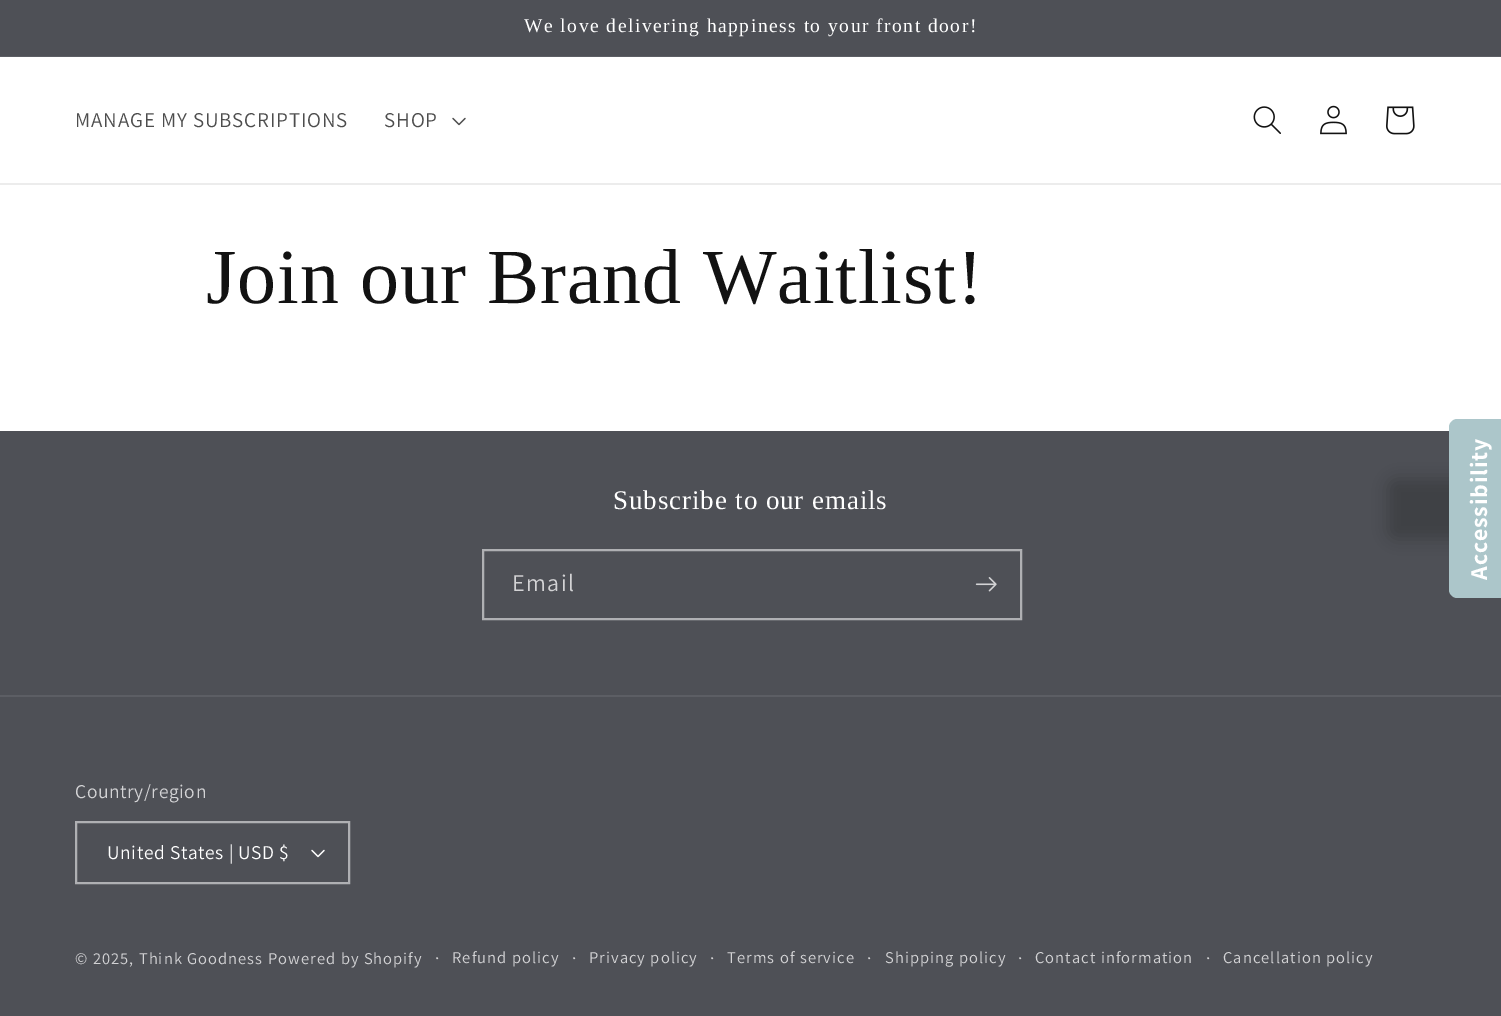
%!PS-Adobe-3.0
%%BoundingBox: 0 0 1501 1016
%%LanguageLevel: 3
%%Pages: 1
%%EndComments
%%BeginProlog
/setink { 3 { 255 div 3 1 roll } repeat setrgbcolor } def
/usefont { [ exch dup neg 0 0 3 -1 roll 0 0 ] selectfont } def
/fillbox { setink rectfill } def
/setalpha { dup .setfillconstantalpha .setstrokeconstantalpha } def
/rrect { 5 dict begin { /r /h /w /y /x } { exch def } forall
  x r add y moveto x w add y 2 copy h add r arct x w add y h add x 1 index r arct
  x y h add x y r arct x y 2 copy exch w add exch r arct closepath end } def
/softshadow { 12 dict begin { /a /b /q /h /w /y /x } { exch def } forall gsave /was 0 def
  9 -2 -9 { dup b mul 4 div /e exch def 1 sub .425 mul 2.718 exch exp 1 add a .99 .min exch div /now exch def
    1 1 now sub 1 was sub div sub setalpha /was now def
    w h .min e 2 mul add 0 gt { x e sub y e sub w e 2 mul add h e 2 mul add
      q e add b .6 mul add w h .min 2 div e add .min 0 .max rrect fill } if } for grestore end } def
/drawimage { 5 dict begin { /h /w /y /x /name } { exch def } forall
  gsave x y translate w h scale
  w h 8 [w 0 0 h 0 0] name (r) file false 3 colorimage grestore end } def
%%EndProlog
%%BeginSetup
<< /PageSize [1501 1016] /PageUsesTransparency true >> setpagedevice
%%EndSetup
%%Page: 1 1
0 .pushpdf14devicefilter
0 1016 translate 1 -1 scale
4 setmiterlimit
0 0 1501 1016 255 255 255 fillbox
0 0 1501 56 78 80 86 fillbox
0 56 1501 1 92 94 100 fillbox
/LiberationSerif-Regular 19.5 usefont
255 255 255 setink
524 32 moveto 1.5 0 (We love delivering happiness to your front door!) ashow
0 183 1501 2 236 236 236 fillbox
/Assistant-Regular 21 usefont
77 77 77 setink
75 127 moveto 0.9 0 (MANAGE MY SUBSCRIPTIONS) ashow
384 127 moveto 0.9 0 (SHOP) ashow
(assets/img1.rgb) 452 117 14 9 drawimage
(assets/img2.rgb) 1253 106 28 28 drawimage
(assets/img3.rgb) 1320 105 27 30 drawimage
(assets/img4.rgb) 1386 106 29 29 drawimage
/LiberationSerif-Regular 78 usefont
18 18 18 setink
206 303 moveto 0.9 0 (Join our Brand Waitlist!) ashow
0 431 1501 585 78 80 86 fillbox
/LiberationSerif-Regular 27 usefont
255 255 255 setink
613 509 moveto 0.9 0 (Subscribe to our emails) ashow
175 176 179 setink
2 setlinewidth
483 550 538 69 rectstroke
/Assistant-Regular 24 usefont
211 211 213 setink
512 591 moveto 1.5 0 (Email) ashow
(assets/img5.rgb) 975 577 22 15 drawimage
0 695 1501 2 92 94 100 fillbox
/Assistant-Regular 19.5 usefont
211 211 213 setink
75 798 moveto 0.6 0 (Country/region) ashow
(assets/img6.rgb) 311 849 14 9 drawimage
175 176 179 setink
76 822 273 61 rectstroke
255 255 255 setink
107 859 moveto 0.6 0 (United States | USD $) ashow
/Assistant-Regular 16.5 usefont
211 211 213 setink
75 964 moveto 1.05 0 (© 2025, Think Goodness) ashow
268 964 moveto 1.05 0 (Powered by Shopify) ashow
/Assistant-Regular 18 usefont
435 964 moveto 1.05 0 (·) ashow
/Assistant-Regular 16.5 usefont
452 963 moveto 1.05 0 (Refund policy) ashow
/Assistant-Regular 18 usefont
572 964 moveto 1.05 0 (·) ashow
/Assistant-Regular 16.5 usefont
589 963 moveto 1.05 0 (Privacy policy) ashow
/Assistant-Regular 18 usefont
710 964 moveto 1.05 0 (·) ashow
/Assistant-Regular 16.5 usefont
727 963 moveto 1.05 0 (Terms of service) ashow
/Assistant-Regular 18 usefont
867 964 moveto 1.05 0 (·) ashow
/Assistant-Regular 16.5 usefont
885 963 moveto 1.05 0 (Shipping policy) ashow
/Assistant-Regular 18 usefont
1018 964 moveto 1.05 0 (·) ashow
/Assistant-Regular 16.5 usefont
1035 963 moveto 1.05 0 (Contact information) ashow
/Assistant-Regular 18 usefont
1206 964 moveto 1.05 0 (·) ashow
/Assistant-Regular 16.5 usefont
1223 963 moveto 1.05 0 (Cancellation policy) ashow
0 0 0 setink
1388 479 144 60 8 7.5 0.2 softshadow
172 198 202 setink
1449 590 moveto 1449 427 lineto 1449 423 1453 419 1457 419 curveto 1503 419 lineto 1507 419 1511 423 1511 427 curveto 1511 590 lineto 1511 594 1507 598 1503 598 curveto 1457 598 lineto 1453 598 1449 594 1449 590 curveto closepath fill
/Assistant-Bold 24 usefont
255 255 255 setink
gsave 1487 580 translate -90 rotate 0 0 moveto 0.9 0 (Accessibility) ashow grestore
.poppdf14devicefilter showpage
%%EOF
